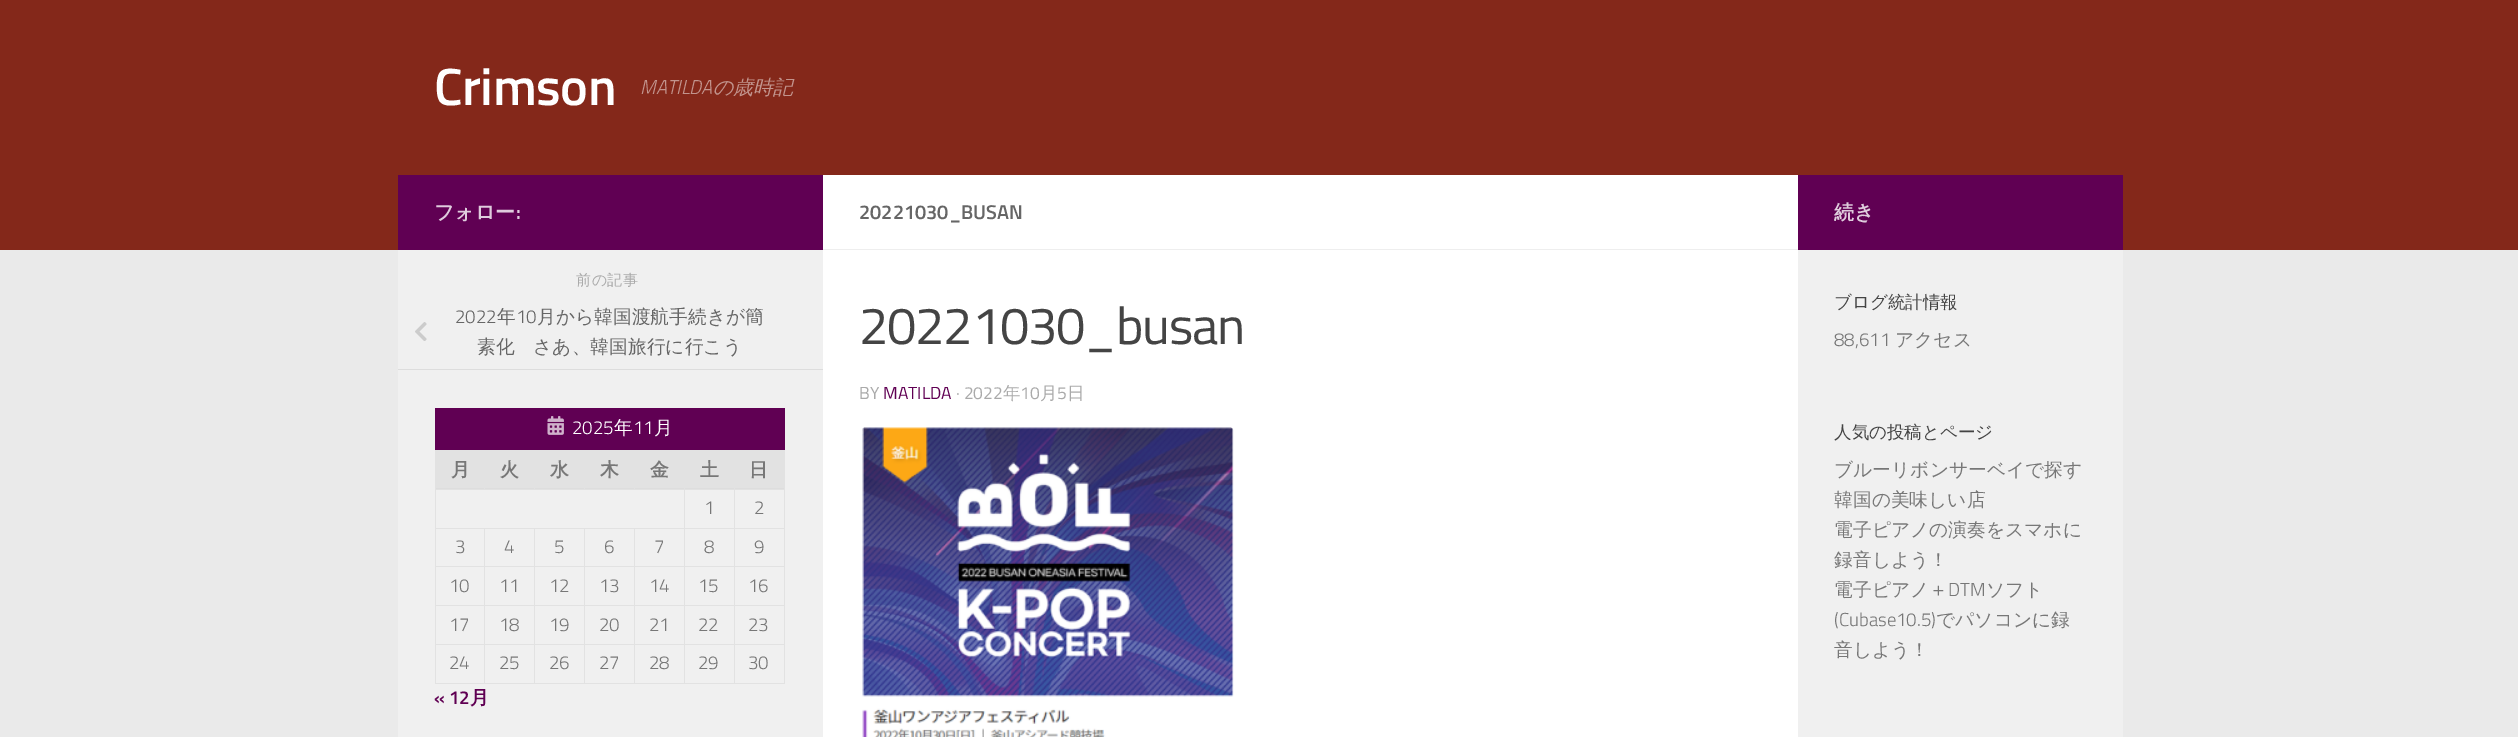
%!PS-Adobe-3.0
%%BoundingBox: 0 0 2518 737
%%LanguageLevel: 3
%%Pages: 1
%%EndComments
%%BeginProlog
/setink { 3 { 255 div 3 1 roll } repeat setrgbcolor } def
/usefont { [ exch dup neg 0 0 3 -1 roll 0 0 ] selectfont } def
/drawtext { setink usefont moveto show } def
/fillbox { setink rectfill } def
/drawimage { 5 dict begin { /h /w /y /x /name } { exch def } forall
  gsave x y translate w h scale
  w h 8 [w 0 0 h 0 0] name (r) file false 3 colorimage grestore end } def
%%EndProlog
%%BeginSetup
<< /PageSize [2518 737] >> setpagedevice
%%EndSetup
%%Page: 1 1
0 737 translate 1 -1 scale
4 setmiterlimit
0 0 2518 737 234 234 234 fillbox
0 0 2518 250 132 40 26 fillbox
/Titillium-SemiBold 52.5 usefont
255 255 255 setink
434 105 moveto -0.5 0 (Crimson) ashow
(MATILDA) 640 94 /Titillium-LightItalic 20 194 148 141 drawtext
(の歳時記) 713 94 /WenQuanYiZenHei-MediumItalic 20 194 148 141 drawtext
823 175 975 562 255 255 255 fillbox
398 175 425 75 96 0 83 fillbox
(フォロー) 434 219 /WenQuanYiZenHei-Bold 20 223 204 221 drawtext
(:) 516 219 /Titillium-SemiBold 20 223 204 221 drawtext
398 250 425 487 240 240 240 fillbox
/WenQuanYiZenHei-Medium 15 usefont
170 170 170 setink
576 285 moveto 0.5 0 (前の記事) ashow
398 369 425 1 221 221 221 fillbox
(2022) 455 323 /Titillium-Light 18.75 102 102 102 drawtext
(年) 497 323 /WenQuanYiZenHei-Medium 18.75 102 102 102 drawtext
(10) 516 323 /Titillium-Light 18.75 102 102 102 drawtext
(月から韓国渡航手続きが簡) 537 323 /WenQuanYiZenHei-Medium 18.75 102 102 102 drawtext
(assets/img1.rgb) 415 322 12 19 drawimage
(素化　さあ、韓国旅行に行こう) 477 353 /WenQuanYiZenHei-Medium 18.75 102 102 102 drawtext
435 408 350 42 96 0 83 fillbox
(assets/img2.rgb) 547 416 17 19 drawimage
(2025) 572 434 /Titillium-Light 18.75 255 255 255 drawtext
(年) 614 434 /WenQuanYiZenHei-Medium 18.75 255 255 255 drawtext
(11) 633 434 /Titillium-Light 18.75 255 255 255 drawtext
(月) 654 434 /WenQuanYiZenHei-Medium 18.75 255 255 255 drawtext
436 450 348 38 226 226 226 fillbox
435 488 349 1 221 221 221 fillbox
(月) 451 476 /WenQuanYiZenHei-Bold 18.75 119 119 119 drawtext
734 489 51 1 226 226 226 fillbox
734 528 51 1 226 226 226 fillbox
734 566 51 1 226 226 226 fillbox
734 605 51 1 226 226 226 fillbox
734 644 51 1 226 226 226 fillbox
784 644 1 40 226 226 226 fillbox
734 683 51 1 226 226 226 fillbox
734 644 1 40 226 226 226 fillbox
684 644 51 1 226 226 226 fillbox
734 605 1 40 226 226 226 fillbox
684 605 51 1 226 226 226 fillbox
734 566 1 40 226 226 226 fillbox
684 566 51 1 226 226 226 fillbox
734 528 1 40 226 226 226 fillbox
684 528 51 1 226 226 226 fillbox
734 489 1 40 226 226 226 fillbox
684 489 51 1 226 226 226 fillbox
684 683 51 1 226 226 226 fillbox
684 644 1 40 226 226 226 fillbox
634 644 51 1 226 226 226 fillbox
684 605 1 40 226 226 226 fillbox
634 605 51 1 226 226 226 fillbox
684 566 1 40 226 226 226 fillbox
634 566 51 1 226 226 226 fillbox
684 528 1 40 226 226 226 fillbox
634 528 51 1 226 226 226 fillbox
684 489 1 40 226 226 226 fillbox
435 489 250 1 226 226 226 fillbox
484 488 1 2 226 226 226 fillbox
(火) 500 476 /WenQuanYiZenHei-Bold 18.75 119 119 119 drawtext
534 488 1 2 226 226 226 fillbox
(水) 550 476 /WenQuanYiZenHei-Bold 18.75 119 119 119 drawtext
584 488 1 2 226 226 226 fillbox
(木) 600 476 /WenQuanYiZenHei-Bold 18.75 119 119 119 drawtext
634 488 1 2 226 226 226 fillbox
(金) 650 476 /WenQuanYiZenHei-Bold 18.75 119 119 119 drawtext
684 488 1 2 226 226 226 fillbox
(土) 700 476 /WenQuanYiZenHei-Bold 18.75 119 119 119 drawtext
784 605 1 40 226 226 226 fillbox
784 566 1 40 226 226 226 fillbox
784 528 1 40 226 226 226 fillbox
784 489 1 40 226 226 226 fillbox
784 450 1 40 226 226 226 fillbox
734 488 1 2 226 226 226 fillbox
(日) 749 476 /WenQuanYiZenHei-Bold 18.75 119 119 119 drawtext
634 683 51 1 226 226 226 fillbox
634 644 1 40 226 226 226 fillbox
584 644 51 1 226 226 226 fillbox
634 605 1 40 226 226 226 fillbox
584 605 51 1 226 226 226 fillbox
634 566 1 40 226 226 226 fillbox
584 566 51 1 226 226 226 fillbox
634 528 1 40 226 226 226 fillbox
584 528 51 1 226 226 226 fillbox
584 683 51 1 226 226 226 fillbox
584 644 1 40 226 226 226 fillbox
534 644 51 1 226 226 226 fillbox
584 605 1 40 226 226 226 fillbox
534 605 51 1 226 226 226 fillbox
584 566 1 40 226 226 226 fillbox
534 566 51 1 226 226 226 fillbox
584 528 1 40 226 226 226 fillbox
534 528 51 1 226 226 226 fillbox
534 683 51 1 226 226 226 fillbox
534 644 1 40 226 226 226 fillbox
484 644 51 1 226 226 226 fillbox
534 605 1 40 226 226 226 fillbox
484 605 51 1 226 226 226 fillbox
534 566 1 40 226 226 226 fillbox
484 566 51 1 226 226 226 fillbox
534 528 1 40 226 226 226 fillbox
484 528 51 1 226 226 226 fillbox
484 683 51 1 226 226 226 fillbox
484 644 1 40 226 226 226 fillbox
435 644 50 1 226 226 226 fillbox
484 605 1 40 226 226 226 fillbox
435 605 50 1 226 226 226 fillbox
484 566 1 40 226 226 226 fillbox
435 566 50 1 226 226 226 fillbox
484 528 1 40 226 226 226 fillbox
435 528 50 1 226 226 226 fillbox
435 683 50 1 226 226 226 fillbox
435 644 1 40 226 226 226 fillbox
435 605 1 40 226 226 226 fillbox
435 566 1 40 226 226 226 fillbox
435 528 1 40 226 226 226 fillbox
435 450 1 79 226 226 226 fillbox
(1) 704 514 /Titillium-Light 18.75 119 119 119 drawtext
(2) 754 514 /Titillium-Light 18.75 119 119 119 drawtext
(3) 455 553 /Titillium-Light 18.75 119 119 119 drawtext
(4) 504 553 /Titillium-Light 18.75 119 119 119 drawtext
(5) 554 553 /Titillium-Light 18.75 119 119 119 drawtext
(6) 604 553 /Titillium-Light 18.75 119 119 119 drawtext
(7) 654 553 /Titillium-Light 18.75 119 119 119 drawtext
(8) 704 553 /Titillium-Light 18.75 119 119 119 drawtext
(9) 754 553 /Titillium-Light 18.75 119 119 119 drawtext
(10) 449 592 /Titillium-Light 18.75 119 119 119 drawtext
(11) 499 592 /Titillium-Light 18.75 119 119 119 drawtext
(12) 549 592 /Titillium-Light 18.75 119 119 119 drawtext
(13) 599 592 /Titillium-Light 18.75 119 119 119 drawtext
(14) 649 592 /Titillium-Light 18.75 119 119 119 drawtext
(15) 698 592 /Titillium-Light 18.75 119 119 119 drawtext
(16) 748 592 /Titillium-Light 18.75 119 119 119 drawtext
(17) 449 631 /Titillium-Light 18.75 119 119 119 drawtext
(18) 499 631 /Titillium-Light 18.75 119 119 119 drawtext
(19) 549 631 /Titillium-Light 18.75 119 119 119 drawtext
(20) 599 631 /Titillium-Light 18.75 119 119 119 drawtext
(21) 649 631 /Titillium-Light 18.75 119 119 119 drawtext
(22) 698 631 /Titillium-Light 18.75 119 119 119 drawtext
(23) 748 631 /Titillium-Light 18.75 119 119 119 drawtext
(24) 449 669 /Titillium-Light 18.75 119 119 119 drawtext
(25) 499 669 /Titillium-Light 18.75 119 119 119 drawtext
(26) 549 669 /Titillium-Light 18.75 119 119 119 drawtext
(27) 599 669 /Titillium-Light 18.75 119 119 119 drawtext
(28) 649 669 /Titillium-Light 18.75 119 119 119 drawtext
(29) 698 669 /Titillium-Light 18.75 119 119 119 drawtext
(30) 748 669 /Titillium-Light 18.75 119 119 119 drawtext
(« 12) 434 704 /Titillium-SemiBold 18.75 96 0 83 drawtext
(月) 470 704 /WenQuanYiZenHei-Bold 18.75 96 0 83 drawtext
823 249 975 1 238 238 238 fillbox
(20221030_BUSAN) 859 219 /Titillium-SemiBold 20 102 102 102 drawtext
/Titillium-Regular 52.5 usefont
68 68 68 setink
859 344 moveto -1.25 0 (20221030_busan) ashow
(BY) 859 399 /Titillium-Regular 17.5 170 170 170 drawtext
(MATILDA) 883 399 /Titillium-Regular 17.5 96 0 83 drawtext
(· 2022) 956 399 /Titillium-Regular 17.5 170 170 170 drawtext
(年) 1003 399 /WenQuanYiZenHei-Medium 17.5 170 170 170 drawtext
(10) 1020 399 /Titillium-Regular 17.5 170 170 170 drawtext
(月) 1040 399 /WenQuanYiZenHei-Medium 17.5 170 170 170 drawtext
(5) 1057 399 /Titillium-Regular 17.5 170 170 170 drawtext
(日) 1067 399 /WenQuanYiZenHei-Medium 17.5 170 170 170 drawtext
(assets/img3.rgb) 862 427 372 310 drawimage
1798 175 325 75 96 0 83 fillbox
(続き) 1834 219 /WenQuanYiZenHei-Bold 20 223 204 221 drawtext
1798 250 325 487 240 240 240 fillbox
(ブログ統計情報) 1834 308 /WenQuanYiZenHei-Medium 17.5 68 68 68 drawtext
(88,611) 1834 346 /Titillium-Light 18.75 119 119 119 drawtext
(アクセス) 1895 346 /WenQuanYiZenHei-Medium 18.75 119 119 119 drawtext
(人気の投稿とページ) 1834 438 /WenQuanYiZenHei-Medium 17.5 68 68 68 drawtext
(ブルーリボンサーベイで探す) 1834 476 /WenQuanYiZenHei-Medium 18.75 119 119 119 drawtext
(韓国の美味しい店) 1834 506 /WenQuanYiZenHei-Medium 18.75 119 119 119 drawtext
(電子ピアノの演奏をスマホに) 1834 536 /WenQuanYiZenHei-Medium 18.75 119 119 119 drawtext
(録音しよう！) 1834 566 /WenQuanYiZenHei-Medium 18.75 119 119 119 drawtext
(電子ピアノ＋) 1834 596 /WenQuanYiZenHei-Medium 18.75 119 119 119 drawtext
(DTM) 1948 596 /Titillium-Light 18.75 119 119 119 drawtext
(ソフト) 1986 596 /WenQuanYiZenHei-Medium 18.75 119 119 119 drawtext
(\(Cubase10.5\)) 1834 626 /Titillium-Light 18.75 119 119 119 drawtext
(でパソコンに録) 1936 626 /WenQuanYiZenHei-Medium 18.75 119 119 119 drawtext
(音しよう！) 1834 656 /WenQuanYiZenHei-Medium 18.75 119 119 119 drawtext
showpage
%%EOF
